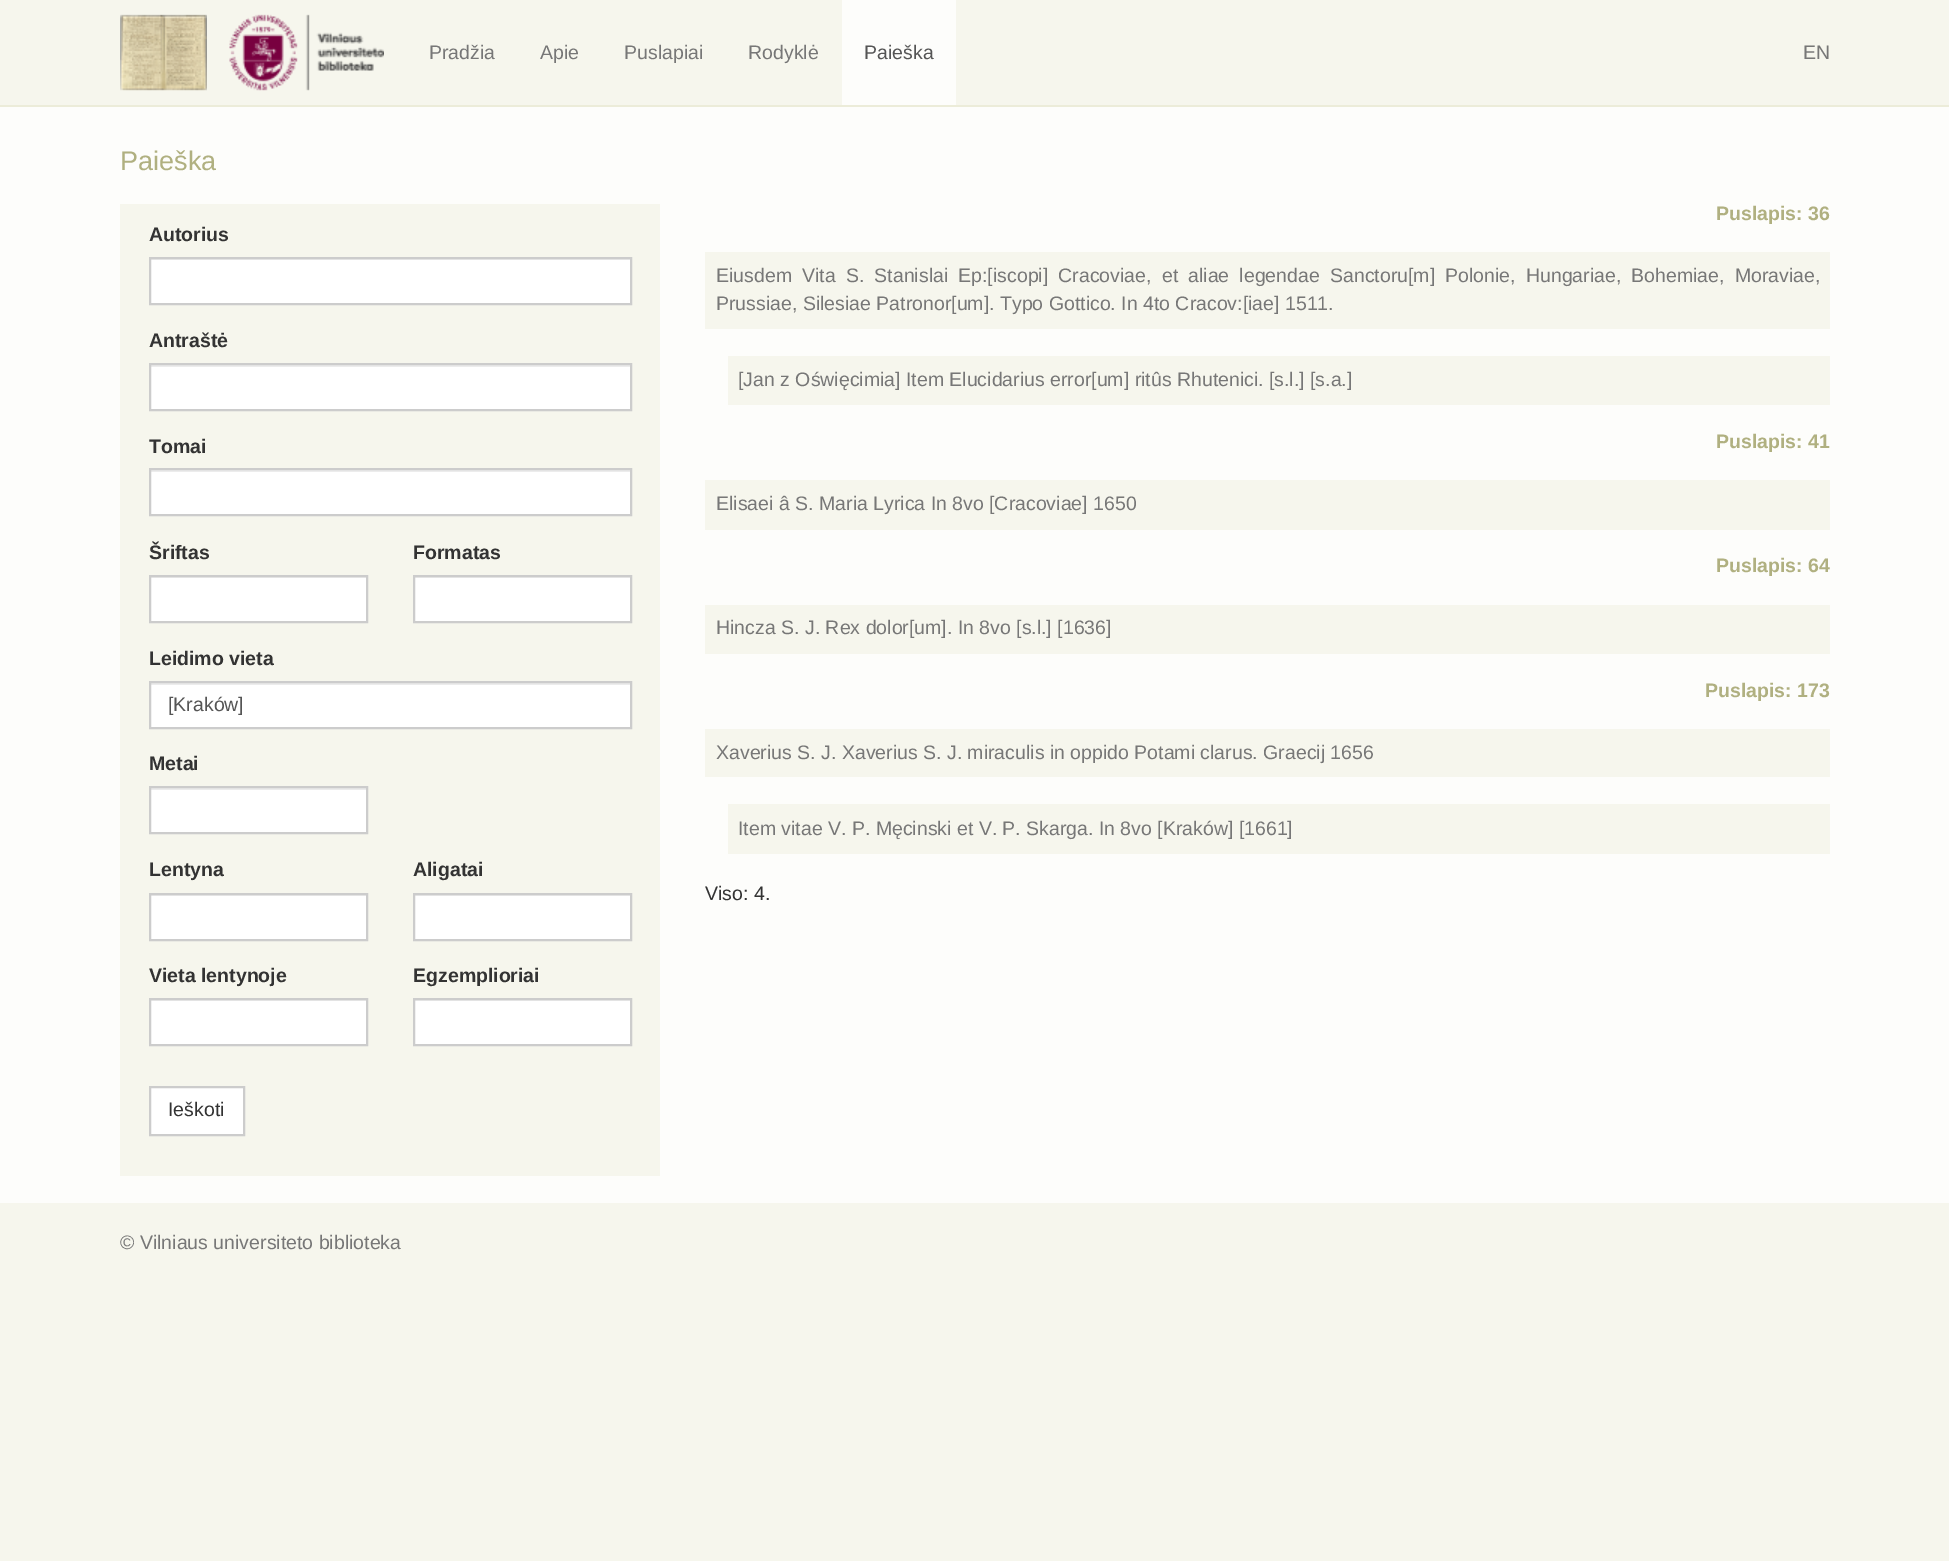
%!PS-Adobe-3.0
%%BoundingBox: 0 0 1949 1561
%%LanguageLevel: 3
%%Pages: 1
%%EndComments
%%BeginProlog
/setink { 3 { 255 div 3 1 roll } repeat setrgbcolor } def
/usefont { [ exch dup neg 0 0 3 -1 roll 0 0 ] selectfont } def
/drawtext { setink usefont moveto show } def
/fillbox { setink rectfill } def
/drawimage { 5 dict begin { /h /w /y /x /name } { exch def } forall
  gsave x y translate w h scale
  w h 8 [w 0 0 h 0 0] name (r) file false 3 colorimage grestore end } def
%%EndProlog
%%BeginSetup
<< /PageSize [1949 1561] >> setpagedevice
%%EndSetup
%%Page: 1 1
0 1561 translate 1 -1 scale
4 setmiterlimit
0 0 1949 1561 246 246 237 fillbox
0 105 1949 2 236 236 217 fillbox
(assets/img1.rgb) 120 14 87 77 drawimage
(assets/img2.rgb) 229 14 155 77 drawimage
(Pradžia) 429 59 /LiberationSans-Regular 19.5 119 119 119 drawtext
(Apie) 540 59 /LiberationSans-Regular 19.5 119 119 119 drawtext
(Puslapiai) 624 59 /LiberationSans-Regular 19.5 119 119 119 drawtext
(Rodyklė) 748 59 /LiberationSans-Regular 19.5 119 119 119 drawtext
842 0 114 105 253 253 251 fillbox
(Paieška) 864 59 /LiberationSans-Regular 19.5 85 85 85 drawtext
(EN) 1803 59 /LiberationSans-Regular 19.5 119 119 119 drawtext
0 107 1949 1096 253 253 251 fillbox
(Paieška) 120 170 /LiberationSans-Regular 27 176 176 128 drawtext
120 204 540 972 246 246 237 fillbox
(Autorius) 149 241 /LiberationSans-Bold 19.5 51 51 51 drawtext
151 260 479 43 255 255 255 fillbox
150 259 480 1 236 236 236 fillbox
204 204 204 setink
2 setlinewidth
150 258 481 46 rectstroke
(Antraštė) 149 347 /LiberationSans-Bold 19.5 51 51 51 drawtext
151 367 479 42 255 255 255 fillbox
150 365 480 2 236 236 236 fillbox
204 204 204 setink
150 364 481 46 rectstroke
(Tomai) 149 453 /LiberationSans-Bold 19.5 51 51 51 drawtext
151 472 479 42 255 255 255 fillbox
150 470 480 2 236 236 236 fillbox
204 204 204 setink
150 469 481 46 rectstroke
(Šriftas) 149 559 /LiberationSans-Bold 19.5 51 51 51 drawtext
151 578 215 43 255 255 255 fillbox
150 577 216 1 236 236 236 fillbox
204 204 204 setink
150 576 217 46 rectstroke
(Formatas) 413 559 /LiberationSans-Bold 19.5 51 51 51 drawtext
415 578 215 43 255 255 255 fillbox
414 577 216 1 236 236 236 fillbox
204 204 204 setink
414 576 217 46 rectstroke
(Leidimo vieta) 149 665 /LiberationSans-Bold 19.5 51 51 51 drawtext
151 685 479 42 255 255 255 fillbox
150 683 480 2 236 236 236 fillbox
204 204 204 setink
150 682 481 46 rectstroke
([Kraków]) 168 711 /LiberationSans-Regular 19.5 85 85 85 drawtext
(Metai) 149 770 /LiberationSans-Bold 19.5 51 51 51 drawtext
151 790 215 42 255 255 255 fillbox
150 788 216 2 236 236 236 fillbox
204 204 204 setink
150 787 217 46 rectstroke
(Lentyna) 149 876 /LiberationSans-Bold 19.5 51 51 51 drawtext
151 896 215 43 255 255 255 fillbox
150 895 216 1 236 236 236 fillbox
204 204 204 setink
150 894 217 46 rectstroke
(Aligatai) 413 876 /LiberationSans-Bold 19.5 51 51 51 drawtext
415 896 215 43 255 255 255 fillbox
414 895 216 1 236 236 236 fillbox
204 204 204 setink
414 894 217 46 rectstroke
(Vieta lentynoje) 149 982 /LiberationSans-Bold 19.5 51 51 51 drawtext
151 1001 215 43 255 255 255 fillbox
150 1000 216 1 236 236 236 fillbox
204 204 204 setink
150 999 217 46 rectstroke
(Egzemplioriai) 413 982 /LiberationSans-Bold 19.5 51 51 51 drawtext
415 1001 215 43 255 255 255 fillbox
414 1000 216 1 236 236 236 fillbox
204 204 204 setink
414 999 217 46 rectstroke
255 255 255 setink
150 1087 moveto 244 1087 lineto 244 1135 lineto 150 1135 lineto closepath gsave fill grestore
204 204 204 setink
stroke
(Ieškoti) 168 1116 /LiberationSans-Regular 19.5 51 51 51 drawtext
(Puslapis: 36) 1716 220 /LiberationSans-Bold 19.5 176 176 128 drawtext
705 252 1125 77 246 246 237 fillbox
/LiberationSans-Regular 19.5 usefont
119 119 119 setink
716 282 moveto 4.75 0 32 (Eiusdem Vita S. Stanislai Ep:[iscopi] Cracoviae, et aliae legendae Sanctoru[m] Polonie, Hungariae, Bohemiae, Moraviae,) widthshow
(Prussiae, Silesiae Patronor[um]. Typo Gottico. In 4to Cracov:[iae] 1511.) 716 310 /LiberationSans-Regular 19.5 119 119 119 drawtext
728 356 1102 49 246 246 237 fillbox
([Jan z Oświęcimia] Item Elucidarius error[um] ritûs Rhutenici. [s.l.] [s.a.]) 738 386 /LiberationSans-Regular 19.5 119 119 119 drawtext
(Puslapis: 41) 1716 448 /LiberationSans-Bold 19.5 176 176 128 drawtext
705 480 1125 50 246 246 237 fillbox
(Elisaei â S. Maria Lyrica In 8vo [Cracoviae] 1650) 716 510 /LiberationSans-Regular 19.5 119 119 119 drawtext
(Puslapis: 64) 1716 572 /LiberationSans-Bold 19.5 176 176 128 drawtext
705 605 1125 49 246 246 237 fillbox
(Hincza S. J. Rex dolor[um]. In 8vo [s.l.] [1636]) 716 634 /LiberationSans-Regular 19.5 119 119 119 drawtext
(Puslapis: 173) 1705 697 /LiberationSans-Bold 19.5 176 176 128 drawtext
705 729 1125 48 246 246 237 fillbox
(Xaverius S. J. Xaverius S. J. miraculis in oppido Potami clarus. Graecij 1656) 716 759 /LiberationSans-Regular 19.5 119 119 119 drawtext
728 804 1102 50 246 246 237 fillbox
(Item vitae V. P. Męcinski et V. P. Skarga. In 8vo [Kraków] [1661]) 738 835 /LiberationSans-Regular 19.5 119 119 119 drawtext
(Viso: 4.) 705 900 /LiberationSans-Regular 19.5 51 51 51 drawtext
(© Vilniaus universiteto biblioteka) 120 1249 /LiberationSans-Regular 19.5 119 119 119 drawtext
showpage
%%EOF
